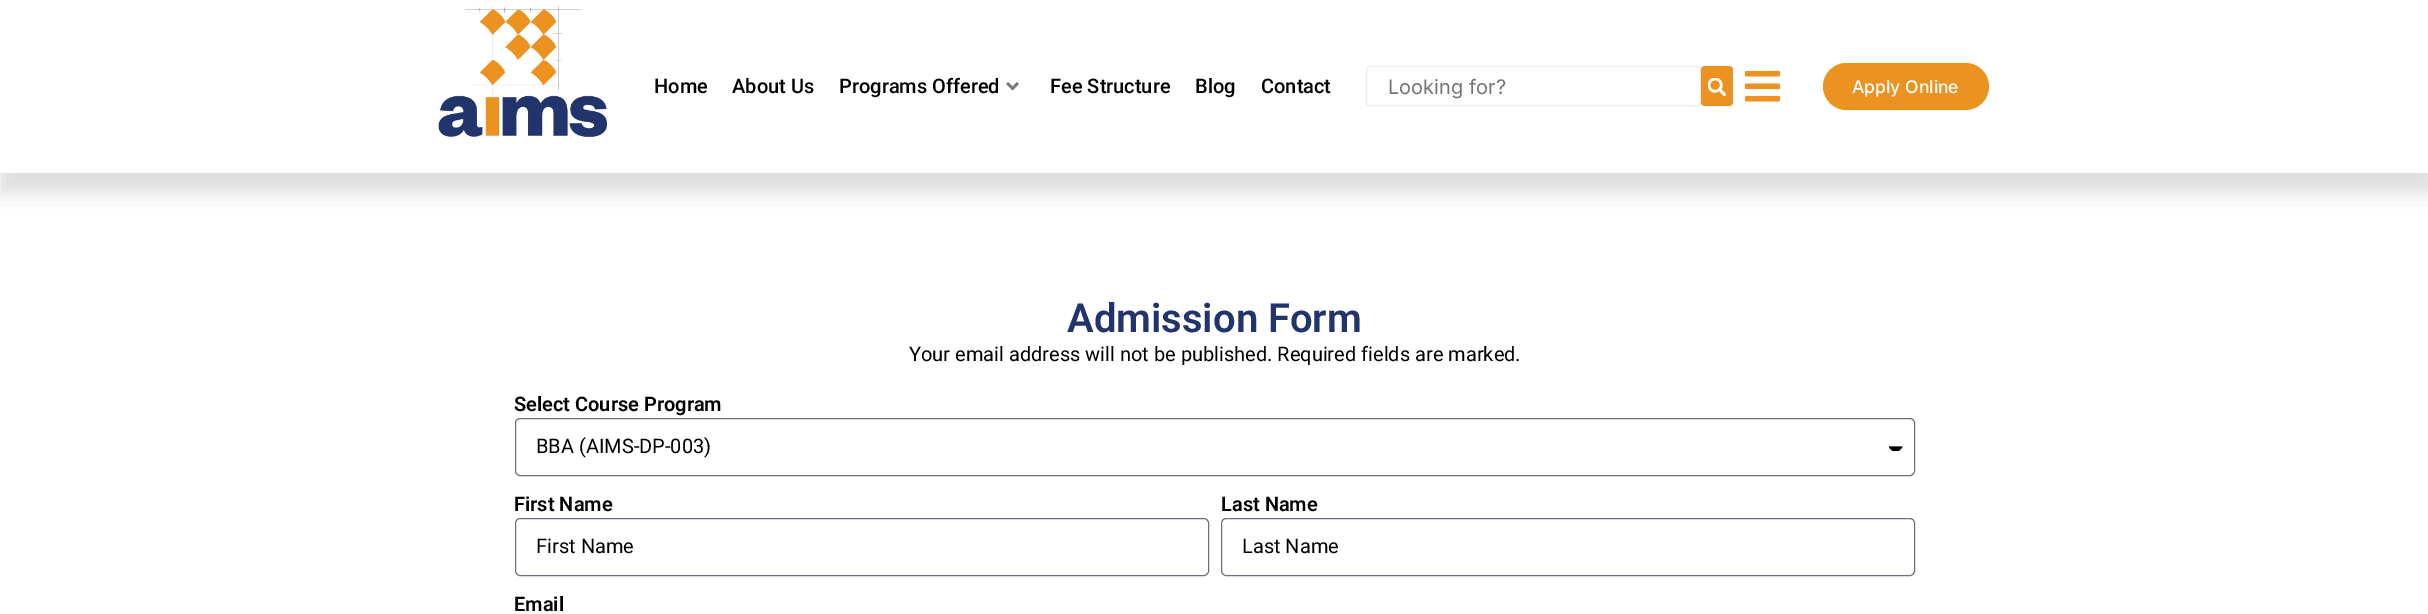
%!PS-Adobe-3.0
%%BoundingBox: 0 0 2428 614
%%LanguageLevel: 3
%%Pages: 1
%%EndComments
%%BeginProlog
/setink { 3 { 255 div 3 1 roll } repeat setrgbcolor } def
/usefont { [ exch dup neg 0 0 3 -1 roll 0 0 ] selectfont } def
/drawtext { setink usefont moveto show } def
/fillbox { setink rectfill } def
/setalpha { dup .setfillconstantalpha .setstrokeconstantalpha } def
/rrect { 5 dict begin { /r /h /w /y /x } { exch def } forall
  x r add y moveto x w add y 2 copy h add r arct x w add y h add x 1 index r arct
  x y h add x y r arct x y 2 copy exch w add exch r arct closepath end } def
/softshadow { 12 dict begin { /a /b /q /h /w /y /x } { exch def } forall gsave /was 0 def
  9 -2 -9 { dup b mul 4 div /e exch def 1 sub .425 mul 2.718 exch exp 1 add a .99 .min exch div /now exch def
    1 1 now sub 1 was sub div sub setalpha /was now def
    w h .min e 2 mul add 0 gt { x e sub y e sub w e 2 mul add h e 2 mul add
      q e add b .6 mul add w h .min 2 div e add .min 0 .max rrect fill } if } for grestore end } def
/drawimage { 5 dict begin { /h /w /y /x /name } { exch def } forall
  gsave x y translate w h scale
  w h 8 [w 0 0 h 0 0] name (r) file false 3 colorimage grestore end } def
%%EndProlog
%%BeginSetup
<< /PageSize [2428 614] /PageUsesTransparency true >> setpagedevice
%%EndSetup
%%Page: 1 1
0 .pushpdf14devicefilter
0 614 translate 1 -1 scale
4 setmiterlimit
0 0 2428 614 255 255 255 fillbox
0 0 0 setink
-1 14 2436 180 0 9.5 0.12 softshadow
0 1 2428 172 255 255 255 fillbox
(assets/img1.rgb) 438 6 169 131 drawimage
(Home) 654 93 /Roboto-Medium 20 0 0 0 drawtext
(About Us) 732 93 /Roboto-Medium 20 0 0 0 drawtext
(Programs Offered) 839 93 /Roboto-Medium 20 0 0 0 drawtext
(assets/img2.rgb) 1006 82 13 9 drawimage
(Fee Structure) 1050 93 /Roboto-Medium 20 0 0 0 drawtext
(Blog) 1195 93 /Roboto-Medium 20 0 0 0 drawtext
(Contact) 1261 93 /Roboto-Medium 20 0 0 0 drawtext
238 238 238 setink
1366.5 66.5 334 39 rectstroke
(Looking for?) 1388 94 /Inter-Regular 20 117 117 117 drawtext
236 146 32 setink
1701 66 32 40 4 rrect fill
(assets/img3.rgb) 1708 78 18 18 drawimage
(assets/img4.rgb) 1745 70 35 32 drawimage
1823 63 166 47 23.5 rrect fill
(Apply Online) 1852 93 /Inter-Medium 17.5 255 255 255 drawtext
(Admission Form) 1067 332 /Roboto-SemiBold 40 33 52 108 drawtext
(Your email address will not be published. Required fields are marked.) 909 361 /Roboto-Regular 20 0 0 0 drawtext
(Select Course Program) 514 411 /Roboto-SemiBold 20 0 0 0 drawtext
105 114 125 setink
515.5 418.5 1399 57 4.5 rrect stroke
(BBA \(AIMS-DP-003\)) 536 453 /Roboto-Regular 20 0 0 0 drawtext
(assets/img5.rgb) 1889 446 14 5 drawimage
(First Name) 514 511 /Roboto-SemiBold 20 0 0 0 drawtext
105 114 125 setink
515.5 518.5 693 57 4.5 rrect stroke
(First Name) 536 553 /Roboto-Regular 20 0 0 0 drawtext
(Last Name) 1221 511 /Roboto-SemiBold 20 0 0 0 drawtext
105 114 125 setink
1221.5 518.5 693 57 4.5 rrect stroke
(Last Name) 1242 553 /Roboto-Regular 20 0 0 0 drawtext
(Email) 514 611 /Roboto-SemiBold 20 0 0 0 drawtext
.poppdf14devicefilter showpage
%%EOF
